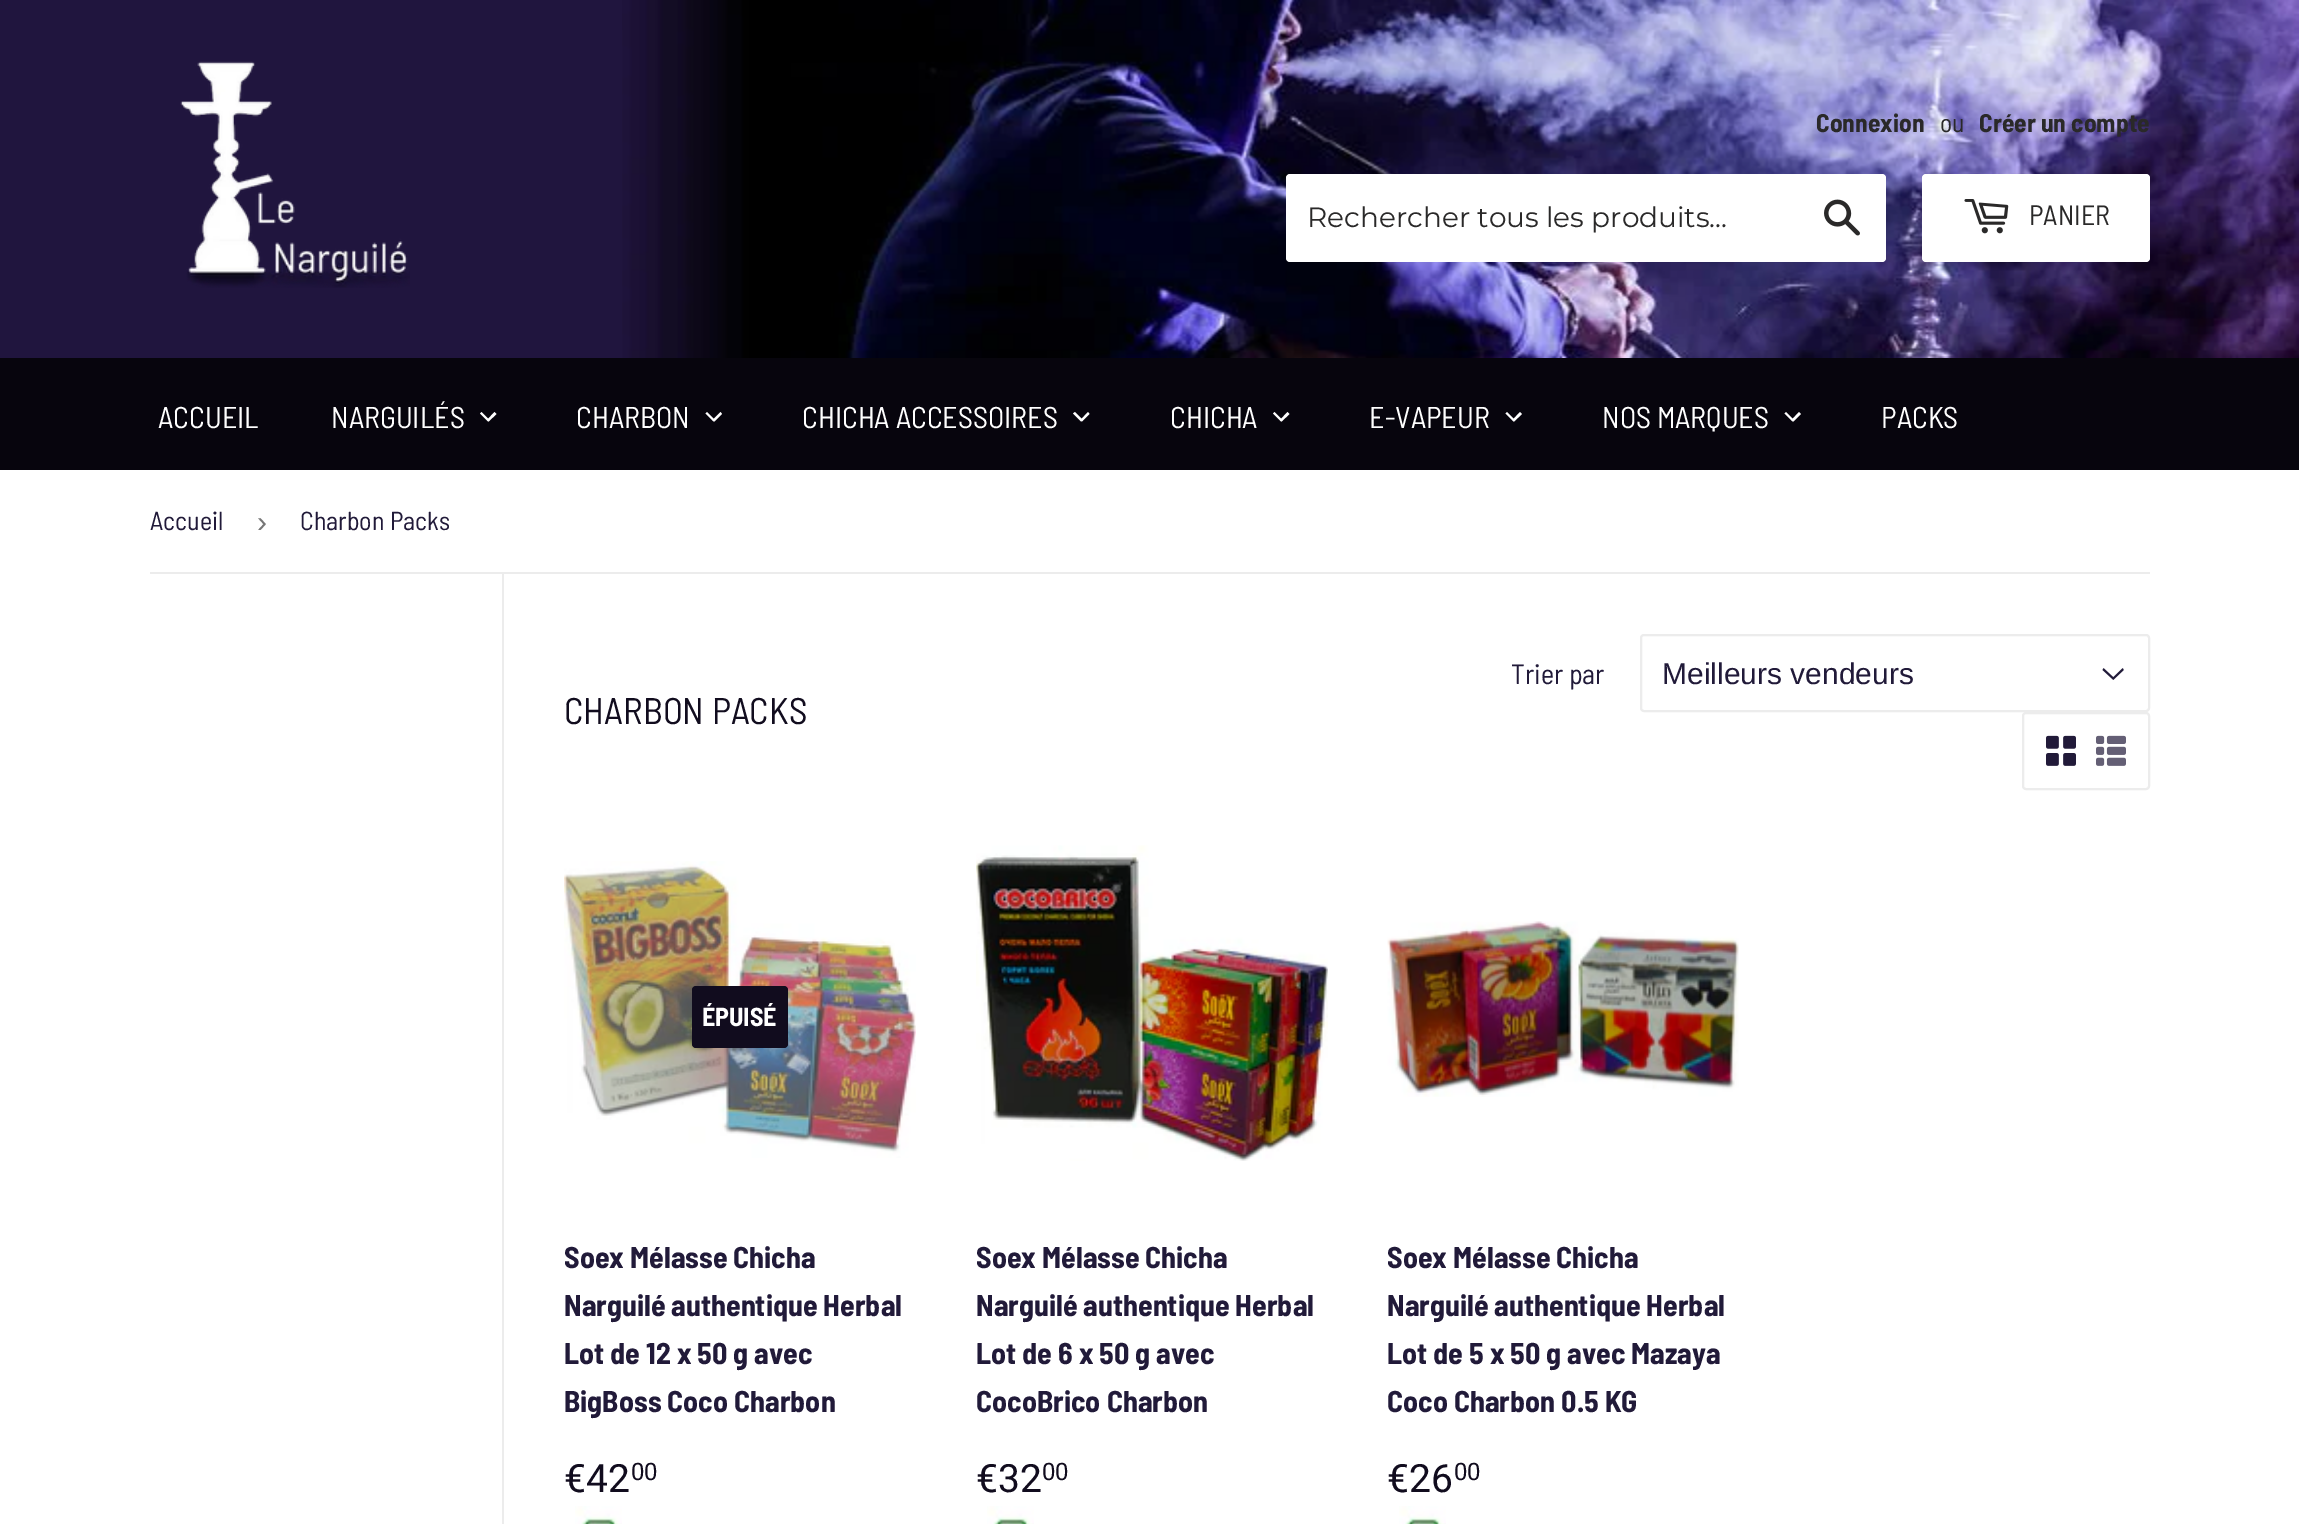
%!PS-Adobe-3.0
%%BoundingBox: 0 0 2299 1524
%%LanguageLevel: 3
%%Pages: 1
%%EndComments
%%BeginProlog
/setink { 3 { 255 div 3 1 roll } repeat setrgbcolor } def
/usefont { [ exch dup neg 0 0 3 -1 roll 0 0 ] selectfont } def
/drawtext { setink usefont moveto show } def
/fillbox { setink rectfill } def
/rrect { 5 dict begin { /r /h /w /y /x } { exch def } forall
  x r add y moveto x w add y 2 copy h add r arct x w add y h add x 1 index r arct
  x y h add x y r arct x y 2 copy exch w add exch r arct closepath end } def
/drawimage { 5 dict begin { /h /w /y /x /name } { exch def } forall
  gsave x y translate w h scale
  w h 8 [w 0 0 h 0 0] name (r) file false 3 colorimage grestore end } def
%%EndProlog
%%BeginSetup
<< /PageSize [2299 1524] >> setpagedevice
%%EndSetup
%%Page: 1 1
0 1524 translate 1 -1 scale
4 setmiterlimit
0 0 2299 1524 255 255 255 fillbox
0 0 622 358 32 21 62 fillbox
(assets/img1.rgb) 622 0 1677 358 drawimage
(assets/img2.rgb) 180 61 230 227 drawimage
(Connexion) 1816 132 /BarlowSemiCondensed-Bold 25.5 42 41 41 drawtext
(ou) 1940 132 /BarlowSemiCondensed-Regular 25.5 42 41 41 drawtext
(Créer un compte) 1979 132 /BarlowSemiCondensed-Bold 25.5 42 41 41 drawtext
255 255 255 setink
1286 174 600 88 4 rrect fill
(Rechercher tous les produits...) 1307 227 /Montserrat-Thin 28 42 41 41 drawtext
(assets/img3.rgb) 1824 199 36 37 drawimage
255 255 255 setink
1922 174 228 88 4 rrect fill
(assets/img4.rgb) 1964 199 45 35 drawimage
(PANIER) 2029 225 /BarlowSemiCondensed-Regular 28 42 41 41 drawtext
0 358 2299 112 7 5 13 fillbox
(ACCUEIL) 158 428 /BarlowSemiCondensed-Regular 30 255 255 255 drawtext
(NARGUILÉS) 331 428 /BarlowSemiCondensed-Regular 30 255 255 255 drawtext
494.5 412 moveto 496.5 414 lineto 488.5 421.5 lineto 487 420 lineto closepath fill
481.5 412 moveto 489.5 420 lineto 488 421.5 lineto 480 413.5 lineto closepath fill
(CHARBON) 576 428 /BarlowSemiCondensed-Regular 30 255 255 255 drawtext
720.5 412 moveto 722 414 lineto 714.5 421.5 lineto 712.5 420 lineto closepath fill
707 412 moveto 715 420 lineto 713.5 421.5 lineto 705.5 413.5 lineto closepath fill
(CHICHA ACCESSOIRES) 802 428 /BarlowSemiCondensed-Regular 30 255 255 255 drawtext
1088 412 moveto 1089.5 414 lineto 1082 421.5 lineto 1080.5 420 lineto closepath fill
1075 412 moveto 1083 420 lineto 1081 421.5 lineto 1073 413.5 lineto closepath fill
(CHICHA) 1170 428 /BarlowSemiCondensed-Regular 30 255 255 255 drawtext
1287.5 412 moveto 1289.5 414 lineto 1281.5 421.5 lineto 1280 420 lineto closepath fill
1274.5 412 moveto 1282.5 420 lineto 1281 421.5 lineto 1273 413.5 lineto closepath fill
(E-VAPEUR) 1369 428 /BarlowSemiCondensed-Regular 30 255 255 255 drawtext
1520 412 moveto 1522 414 lineto 1514 421.5 lineto 1512.5 420 lineto closepath fill
1507 412 moveto 1515 420 lineto 1513.5 421.5 lineto 1505.5 413.5 lineto closepath fill
(NOS MARQUES) 1602 428 /BarlowSemiCondensed-Regular 30 255 255 255 drawtext
1799 412 moveto 1801 414 lineto 1793.5 421.5 lineto 1791.5 420 lineto closepath fill
1786 412 moveto 1794 420 lineto 1792.5 421.5 lineto 1784.5 413.5 lineto closepath fill
(PACKS) 1881 428 /BarlowSemiCondensed-Regular 30 255 255 255 drawtext
150 572 2000 2 236 236 236 fillbox
(Accueil) 150 530 /BarlowSemiCondensed-Regular 26 33 26 57 drawtext
(›) 257 532 /LiberationSans-Regular 30 118 118 118 drawtext
(Charbon Packs) 300 530 /BarlowSemiCondensed-Regular 26 33 26 57 drawtext
502 574 2 950 236 236 236 fillbox
(Trier par) 1511 684 /BarlowSemiCondensed-Regular 28 33 26 57 drawtext
(assets/img5.rgb) 2102 668 22 12 drawimage
236 236 236 setink
2 setlinewidth
1641 635 508 76 3 rrect stroke
(Meilleurs vendeurs) 1662 684 /LiberationSans-Regular 30 33 26 57 drawtext
236 236 236 setink
2023 713 126 76 3 rrect stroke
(assets/img6.rgb) 2046 735 30 31 drawimage
(assets/img7.rgb) 2096 735 30 31 drawimage
(CHARBON PACKS) 564 724 /BarlowSemiCondensed-Regular 37 17 12 30 drawtext
(assets/img8.rgb) 564 861 352 297 drawimage
692 986 96 62 4 rrect fill
(ÉPUISÉ) 702 1026 /BarlowSemiCondensed-Bold 26 255 255 255 drawtext
(Soex Mélasse Chicha) 564 1268 /BarlowSemiCondensed-Bold 30 33 26 57 drawtext
(Narguilé authentique Herbal) 564 1316 /BarlowSemiCondensed-Bold 30 33 26 57 drawtext
(Lot de 12 x 50 g avec) 564 1364 /BarlowSemiCondensed-Bold 30 33 26 57 drawtext
(BigBoss Coco Charbon) 564 1412 /BarlowSemiCondensed-Bold 30 33 26 57 drawtext
(€42) 564 1492 /Roboto-Regular 39 17 12 30 drawtext
(00) 631 1480 /Roboto-Regular 24 17 12 30 drawtext
(assets/img9.rgb) 575 1506 47 18 drawimage
(assets/img10.rgb) 976 845 352 316 drawimage
(Soex Mélasse Chicha) 976 1268 /BarlowSemiCondensed-Bold 30 33 26 57 drawtext
(Narguilé authentique Herbal) 976 1316 /BarlowSemiCondensed-Bold 30 33 26 57 drawtext
(Lot de 6 x 50 g avec) 976 1364 /BarlowSemiCondensed-Bold 30 33 26 57 drawtext
(CocoBrico Charbon) 976 1412 /BarlowSemiCondensed-Bold 30 33 26 57 drawtext
(€32) 976 1492 /Roboto-Regular 39 17 12 30 drawtext
(00) 1042 1480 /Roboto-Regular 24 17 12 30 drawtext
(assets/img9.rgb) 987 1506 47 18 drawimage
(assets/img11.rgb) 1387 921 352 176 drawimage
(Soex Mélasse Chicha) 1387 1268 /BarlowSemiCondensed-Bold 30 33 26 57 drawtext
(Narguilé authentique Herbal) 1387 1316 /BarlowSemiCondensed-Bold 30 33 26 57 drawtext
(Lot de 5 x 50 g avec Mazaya) 1387 1364 /BarlowSemiCondensed-Bold 30 33 26 57 drawtext
(Coco Charbon 0.5 KG) 1387 1412 /BarlowSemiCondensed-Bold 30 33 26 57 drawtext
(€26) 1387 1492 /Roboto-Regular 39 17 12 30 drawtext
(00) 1454 1480 /Roboto-Regular 24 17 12 30 drawtext
(assets/img9.rgb) 1399 1506 47 18 drawimage
showpage
%%EOF
